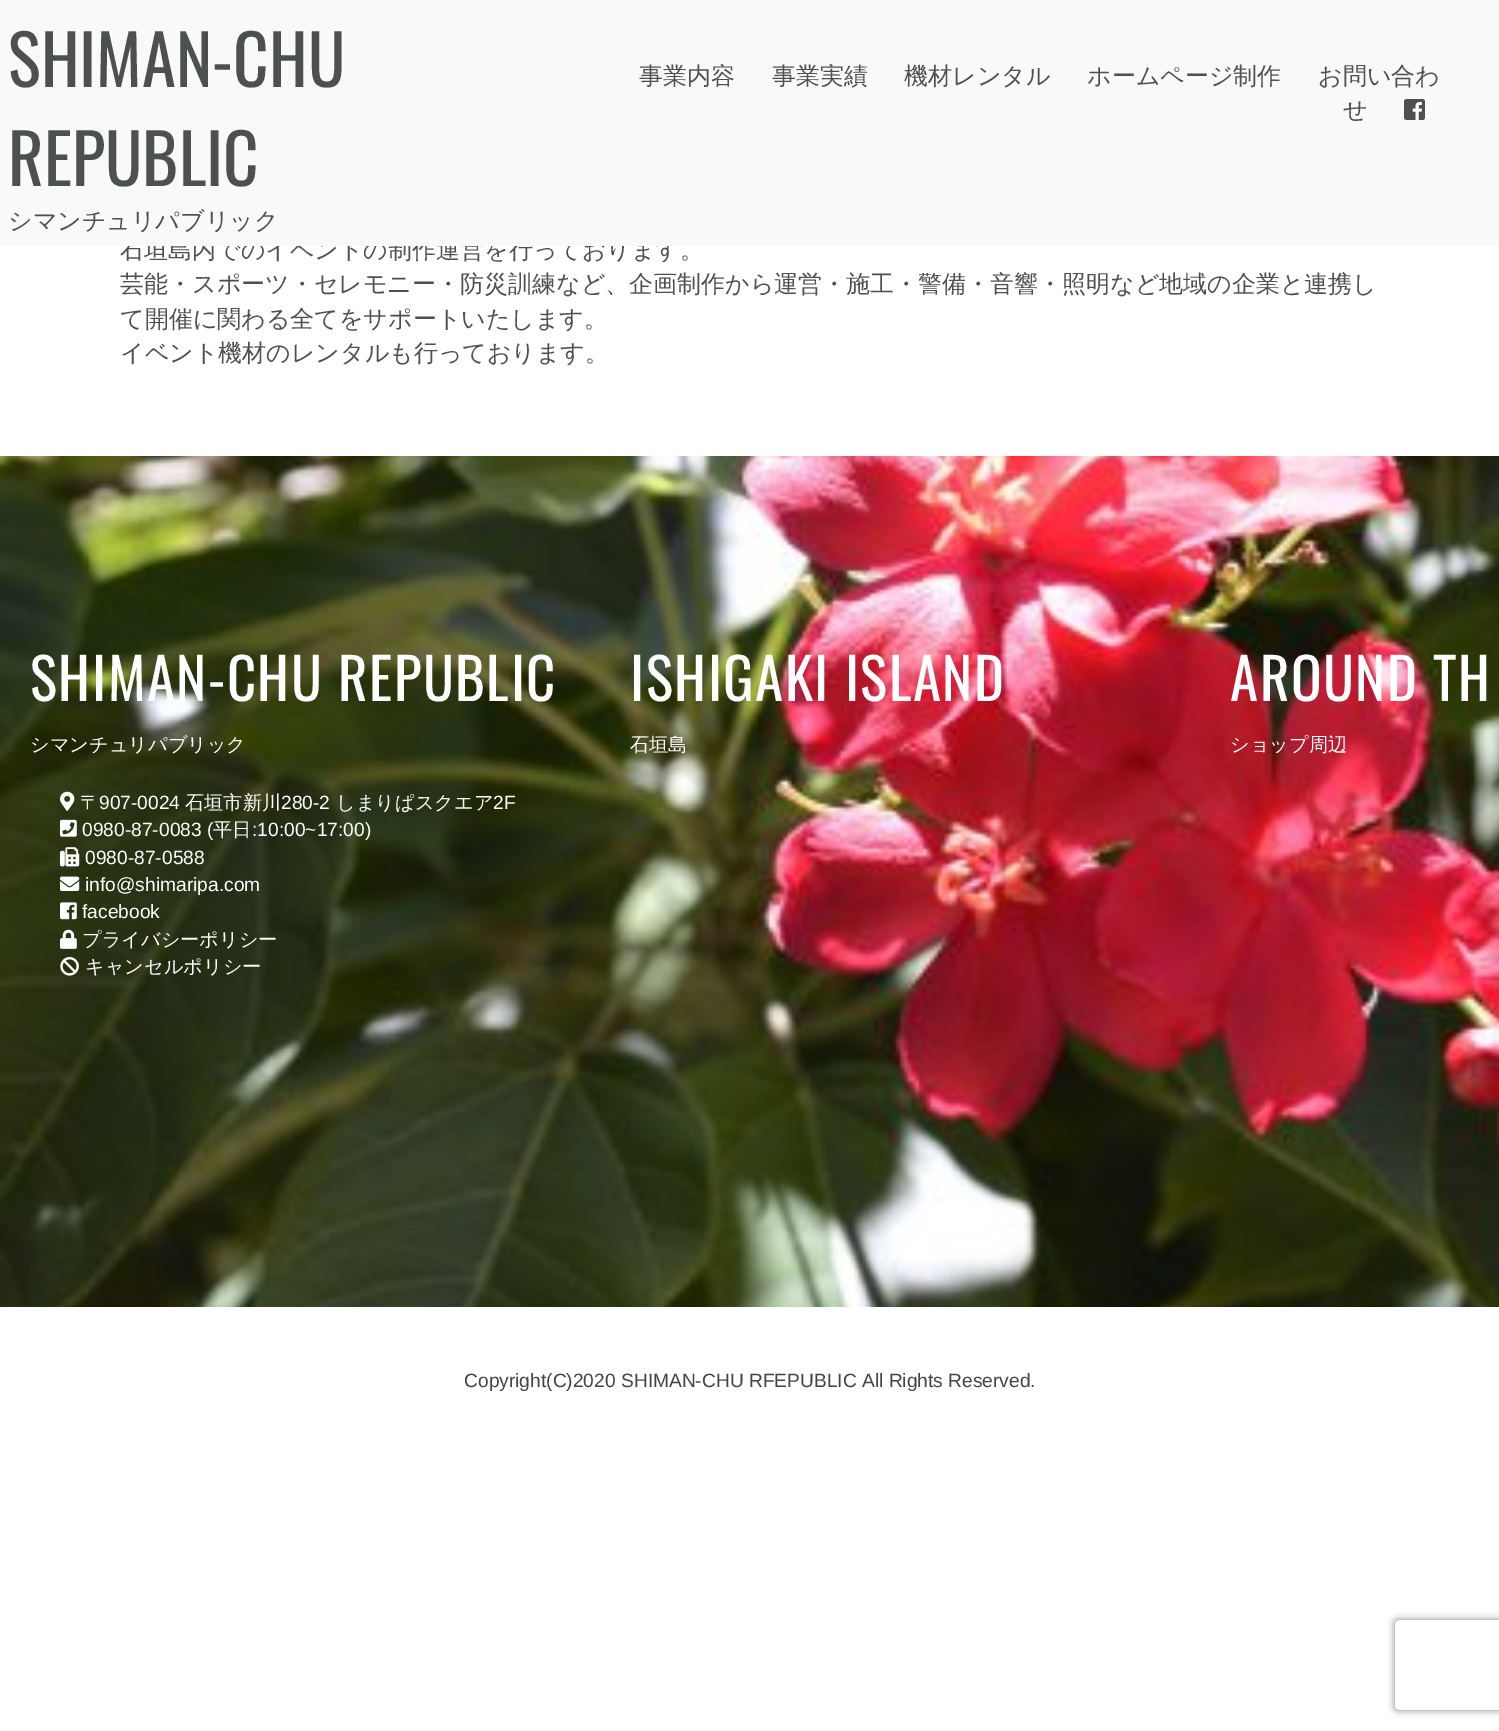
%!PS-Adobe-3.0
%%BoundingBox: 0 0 1499 1731
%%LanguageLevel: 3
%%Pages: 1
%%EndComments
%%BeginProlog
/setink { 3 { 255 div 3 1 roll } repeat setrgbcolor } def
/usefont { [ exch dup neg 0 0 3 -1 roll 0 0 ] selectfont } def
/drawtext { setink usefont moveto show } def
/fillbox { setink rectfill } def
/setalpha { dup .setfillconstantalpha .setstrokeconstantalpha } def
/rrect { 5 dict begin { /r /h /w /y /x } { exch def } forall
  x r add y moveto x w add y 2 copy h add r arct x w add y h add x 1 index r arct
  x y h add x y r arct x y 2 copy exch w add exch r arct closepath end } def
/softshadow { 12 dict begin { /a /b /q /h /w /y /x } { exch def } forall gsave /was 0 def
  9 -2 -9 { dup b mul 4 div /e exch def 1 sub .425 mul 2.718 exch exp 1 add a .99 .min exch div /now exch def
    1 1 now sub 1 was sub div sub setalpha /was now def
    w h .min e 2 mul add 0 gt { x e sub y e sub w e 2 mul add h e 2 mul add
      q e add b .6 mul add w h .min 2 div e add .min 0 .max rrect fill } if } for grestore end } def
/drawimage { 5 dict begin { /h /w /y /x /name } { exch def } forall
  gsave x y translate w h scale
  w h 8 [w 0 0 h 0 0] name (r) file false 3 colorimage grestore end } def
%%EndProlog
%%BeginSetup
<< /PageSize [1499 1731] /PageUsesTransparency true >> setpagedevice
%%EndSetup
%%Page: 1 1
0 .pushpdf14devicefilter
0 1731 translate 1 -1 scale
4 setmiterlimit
0 0 1499 1731 255 255 255 fillbox
(石垣島内でのイベントの制作運営を行っております。) 120 258 /WenQuanYiZenHei-Medium 24 77 80 81 drawtext
0 0 1499 246 249 249 249 fillbox
(SHIMAN-CHU) 8 87 /Oswald-Regular 69 77 80 81 drawtext
(REPUBLIC) 8 186 /Oswald-Regular 69 77 80 81 drawtext
(シマンチュリパブリック) 8 229 /WenQuanYiZenHei-Medium 24 77 80 81 drawtext
(事業内容) 639 84 /WenQuanYiZenHei-Medium 24 77 80 81 drawtext
(事業実績) 772 84 /WenQuanYiZenHei-Medium 24 77 80 81 drawtext
(機材レンタル) 904 84 /WenQuanYiZenHei-Medium 24 77 80 81 drawtext
(ホームページ制作) 1087 84 /WenQuanYiZenHei-Medium 24 77 80 81 drawtext
(お問い合わ) 1318 84 /WenQuanYiZenHei-Medium 24 77 80 81 drawtext
(せ) 1343 118 /WenQuanYiZenHei-Medium 24 77 80 81 drawtext
(assets/img1.rgb) 1404 99 21 21 drawimage
(芸能・スポーツ・セレモニー・防災訓練など、企画制作から運営・施工・警備・音響・照明など地域の企業と連携し) 120 292 /WenQuanYiZenHei-Medium 24 77 80 81 drawtext
(て開催に関わる全てをサポートいたします。) 120 327 /WenQuanYiZenHei-Medium 24 77 80 81 drawtext
(イベント機材のレンタルも行っております。) 120 361 /WenQuanYiZenHei-Medium 24 77 80 81 drawtext
(assets/img2.rgb) 0 456 1499 851 drawimage
/Oswald-Regular 57 usefont
255 255 255 setink
30 701 moveto 1.5 0 (SHIMAN-CHU REPUBLIC) ashow
(シマンチュリパブリック) 30 751 /WenQuanYiZenHei-Medium 19.2 255 255 255 drawtext
(assets/img3.rgb) 60 791 15 20 drawimage
(〒) 80 809 /WenQuanYiZenHei-Medium 19.2 255 255 255 drawtext
(907-0024) 99 809 /LiberationSans-Regular 19.2 255 255 255 drawtext
(石垣市新川) 185 809 /WenQuanYiZenHei-Medium 19.2 255 255 255 drawtext
(280-2) 281 809 /LiberationSans-Regular 19.2 255 255 255 drawtext
(しまりぱスクエア) 336 809 /WenQuanYiZenHei-Medium 19.2 255 255 255 drawtext
(2F) 493 809 /LiberationSans-Regular 19.2 255 255 255 drawtext
(assets/img4.rgb) 60 819 17 18 drawimage
(0980-87-0083 \() 82 836 /LiberationSans-Regular 19.2 255 255 255 drawtext
(平日) 213 836 /WenQuanYiZenHei-Medium 19.2 255 255 255 drawtext
(:10:00~17:00\)) 252 836 /LiberationSans-Regular 19.2 255 255 255 drawtext
(assets/img5.rgb) 60 847 20 20 drawimage
(0980-87-0588) 85 864 /LiberationSans-Regular 19.2 255 255 255 drawtext
(assets/img6.rgb) 60 876 20 15 drawimage
(info@shimaripa.com) 85 891 /LiberationSans-Regular 19.2 255 255 255 drawtext
(assets/img7.rgb) 60 902 17 18 drawimage
(facebook) 82 918 /LiberationSans-Regular 19.2 255 255 255 drawtext
(assets/img8.rgb) 60 929 17 20 drawimage
(プライバシーポリシー) 82 946 /WenQuanYiZenHei-Medium 19.2 255 255 255 drawtext
(assets/img9.rgb) 60 957 19 19 drawimage
(キャンセルポリシー) 85 973 /WenQuanYiZenHei-Medium 19.2 255 255 255 drawtext
/Oswald-Regular 57 usefont
630 701 moveto 1.5 0 (ISHIGAKI ISLAND) ashow
(石垣島) 630 751 /WenQuanYiZenHei-Medium 19.2 255 255 255 drawtext
/Oswald-Regular 57 usefont
1230 701 moveto 1.5 0 (AROUND TH) ashow
(ショップ周辺) 1230 751 /WenQuanYiZenHei-Medium 19.2 255 255 255 drawtext
(Copyright\(C\)2020 SHIMAN-CHU RFEPUBLIC All Rights Reserved.) 464 1387 /LiberationSans-Regular 19.2 68 68 68 drawtext
gsave
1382 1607 moveto 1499 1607 lineto 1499 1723 lineto 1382 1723 lineto closepath 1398 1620 moveto 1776 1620 lineto 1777.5 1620 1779 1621.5 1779 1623 curveto 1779 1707 lineto 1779 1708.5 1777.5 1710 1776 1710 curveto 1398 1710 lineto 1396.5 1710 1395 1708.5 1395 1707 curveto 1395 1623 lineto 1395 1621.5 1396.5 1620 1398 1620 curveto closepath eoclip newpath
128 128 128 setink
1395 1620 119 90 3 4 1 softshadow
grestore
.poppdf14devicefilter showpage
%%EOF
